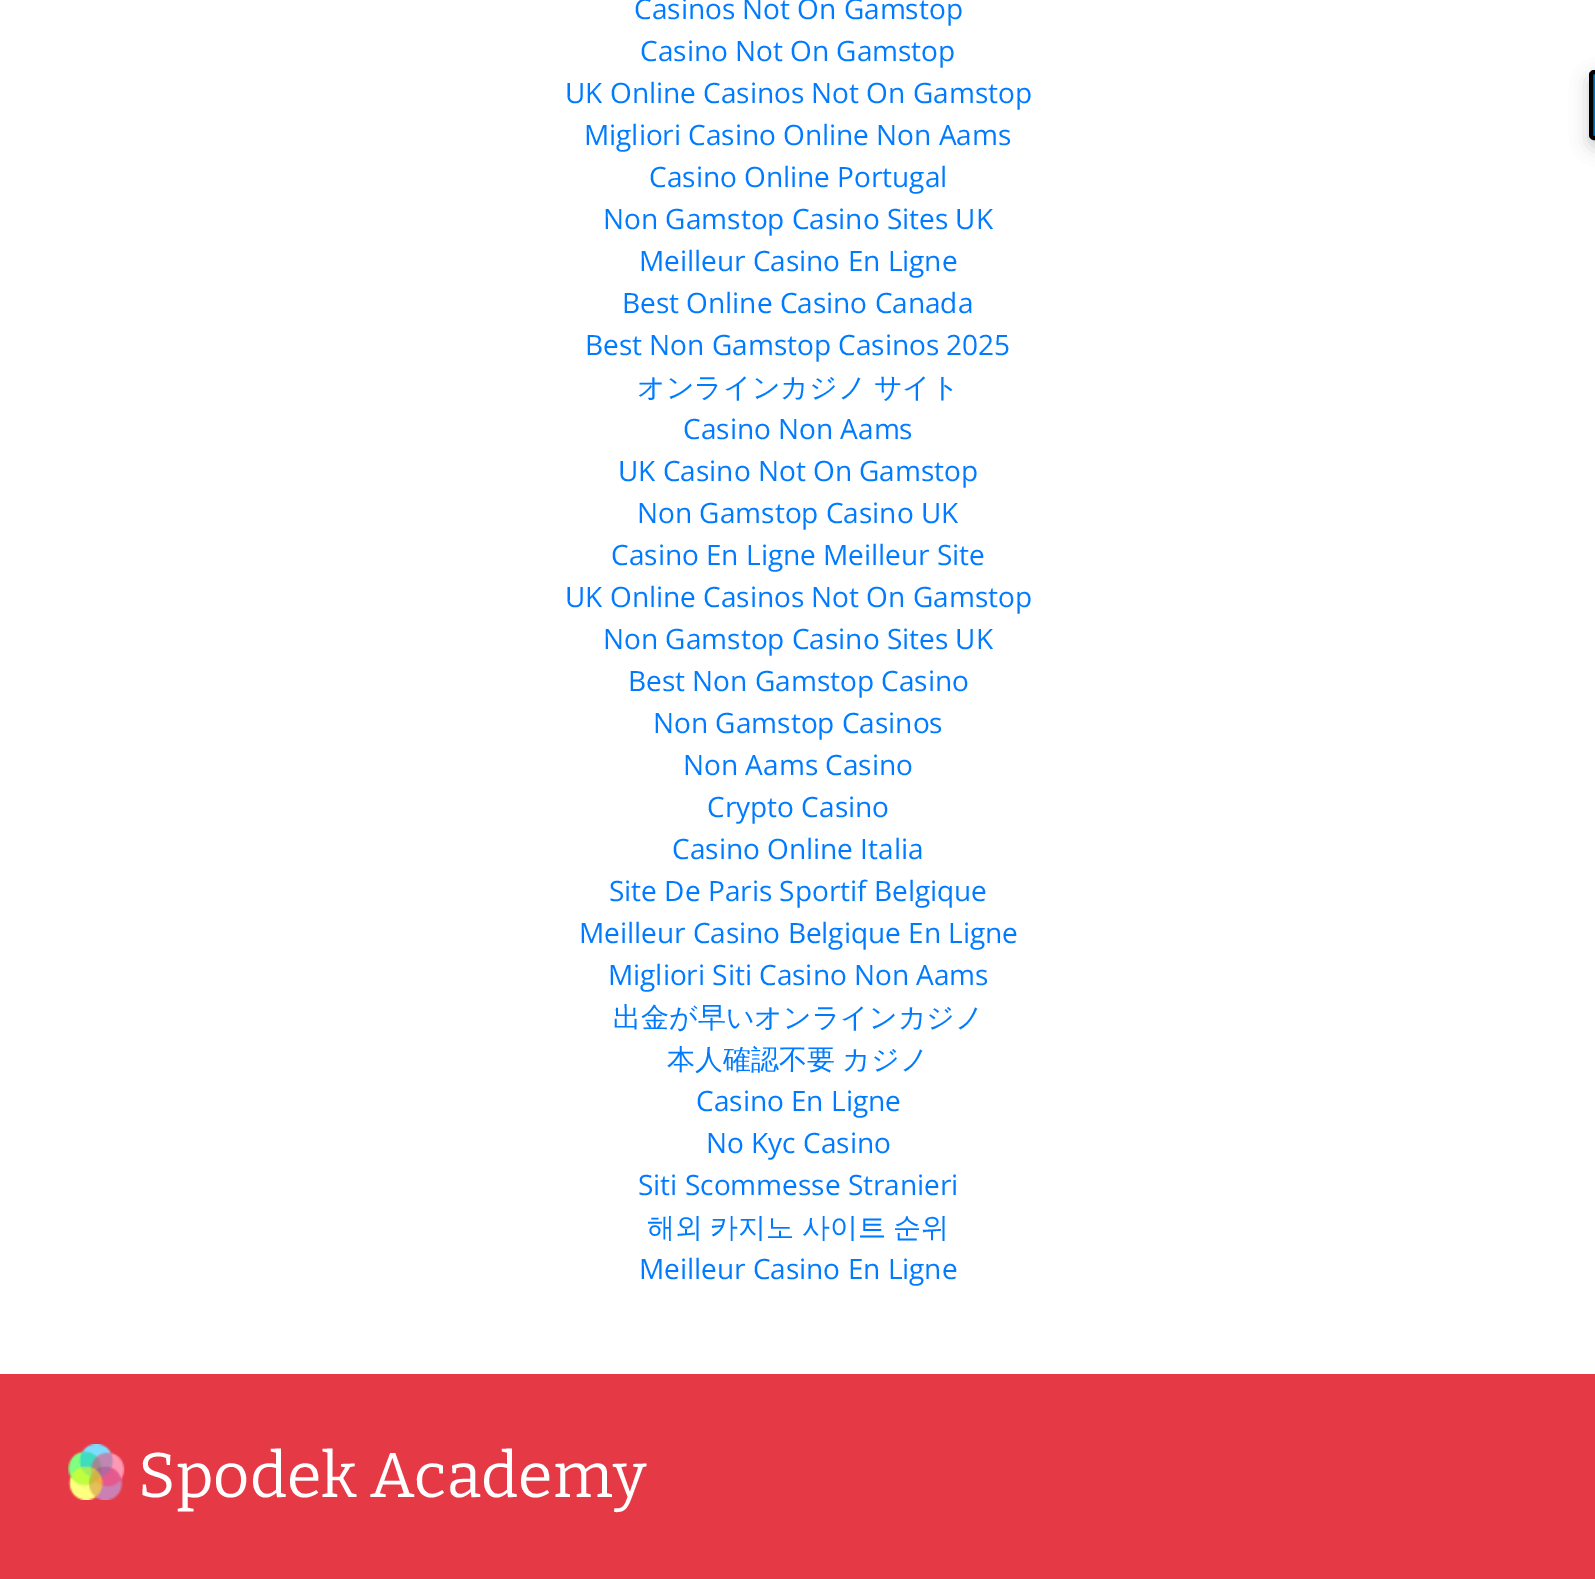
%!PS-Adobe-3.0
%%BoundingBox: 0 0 1595 1579
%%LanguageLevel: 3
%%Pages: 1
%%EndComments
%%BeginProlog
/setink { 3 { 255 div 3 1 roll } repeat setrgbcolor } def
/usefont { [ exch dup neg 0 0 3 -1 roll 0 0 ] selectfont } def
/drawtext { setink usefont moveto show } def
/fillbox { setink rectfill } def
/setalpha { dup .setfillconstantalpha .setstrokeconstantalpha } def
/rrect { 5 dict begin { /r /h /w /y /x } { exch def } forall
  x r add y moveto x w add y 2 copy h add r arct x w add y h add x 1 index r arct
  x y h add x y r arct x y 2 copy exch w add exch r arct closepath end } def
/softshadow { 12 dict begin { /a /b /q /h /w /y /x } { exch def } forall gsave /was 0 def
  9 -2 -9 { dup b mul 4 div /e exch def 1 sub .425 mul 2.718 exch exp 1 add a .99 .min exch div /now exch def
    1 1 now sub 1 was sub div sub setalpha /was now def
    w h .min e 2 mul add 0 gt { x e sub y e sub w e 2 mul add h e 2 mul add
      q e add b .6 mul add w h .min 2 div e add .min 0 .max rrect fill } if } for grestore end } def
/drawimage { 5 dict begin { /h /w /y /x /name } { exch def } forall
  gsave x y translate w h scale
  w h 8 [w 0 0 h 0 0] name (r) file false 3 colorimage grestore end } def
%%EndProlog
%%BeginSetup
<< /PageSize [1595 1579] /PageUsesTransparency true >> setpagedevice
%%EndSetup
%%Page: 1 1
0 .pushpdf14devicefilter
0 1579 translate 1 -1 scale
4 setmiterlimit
0 0 1595 1579 255 255 255 fillbox
(Casinos Not On Gamstop) 634 19 /OpenSans-Regular 28 0 123 255 drawtext
(Casino Not On Gamstop) 640 61 /OpenSans-Regular 28 0 123 255 drawtext
(UK Online Casinos Not On Gamstop) 565 103 /OpenSans-Regular 28 0 123 255 drawtext
(Migliori Casino Online Non Aams) 584 145 /OpenSans-Regular 28 0 123 255 drawtext
(Casino Online Portugal) 649 187 /OpenSans-Regular 28 0 123 255 drawtext
(Non Gamstop Casino Sites UK) 603 229 /OpenSans-Regular 28 0 123 255 drawtext
(Meilleur Casino En Ligne) 639 271 /OpenSans-Regular 28 0 123 255 drawtext
(Best Online Casino Canada) 622 313 /OpenSans-Regular 28 0 123 255 drawtext
(Best Non Gamstop Casinos 2025) 585 355 /OpenSans-Regular 28 0 123 255 drawtext
/WenQuanYiZenHei-Medium 28 usefont
637 397 moveto -1 0 32 (オンラインカジノ サイト) widthshow
(Casino Non Aams) 683 439 /OpenSans-Regular 28 0 123 255 drawtext
(UK Casino Not On Gamstop) 618 481 /OpenSans-Regular 28 0 123 255 drawtext
(Non Gamstop Casino UK) 637 523 /OpenSans-Regular 28 0 123 255 drawtext
(Casino En Ligne Meilleur Site) 611 565 /OpenSans-Regular 28 0 123 255 drawtext
(UK Online Casinos Not On Gamstop) 565 607 /OpenSans-Regular 28 0 123 255 drawtext
(Non Gamstop Casino Sites UK) 603 649 /OpenSans-Regular 28 0 123 255 drawtext
(Best Non Gamstop Casino) 628 691 /OpenSans-Regular 28 0 123 255 drawtext
(Non Gamstop Casinos) 653 733 /OpenSans-Regular 28 0 123 255 drawtext
(Non Aams Casino) 683 775 /OpenSans-Regular 28 0 123 255 drawtext
(Crypto Casino) 707 817 /OpenSans-Regular 28 0 123 255 drawtext
(Casino Online Italia) 672 859 /OpenSans-Regular 28 0 123 255 drawtext
(Site De Paris Sportif Belgique) 609 901 /OpenSans-Regular 28 0 123 255 drawtext
(Meilleur Casino Belgique En Ligne) 579 943 /OpenSans-Regular 28 0 123 255 drawtext
(Migliori Siti Casino Non Aams) 608 985 /OpenSans-Regular 28 0 123 255 drawtext
(出金が早いオンラインカジノ) 613 1027 /WenQuanYiZenHei-Medium 28 0 123 255 drawtext
667 1069 moveto -1 0 32 (本人確認不要 カジノ) widthshow
(Casino En Ligne) 696 1111 /OpenSans-Regular 28 0 123 255 drawtext
(No Kyc Casino) 706 1153 /OpenSans-Regular 28 0 123 255 drawtext
(Siti Scommesse Stranieri) 638 1195 /OpenSans-Regular 28 0 123 255 drawtext
/WenQuanYiZenHei-Medium 28 usefont
647 1237 moveto -1 0 32 (해외 카지노 사이트 순위) widthshow
(Meilleur Casino En Ligne) 639 1279 /OpenSans-Regular 28 0 123 255 drawtext
0 1374 1595 205 230 57 70 fillbox
(assets/img1.rgb) 68 1444 57 56 drawimage
(Spodek Academy) 138 1497 /Bitter-Regular 63 255 255 255 drawtext
0 0 0 setink
1589 77 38 70 5 9 0.2 softshadow
0 115 183 setink
1594 72 moveto 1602 72 lineto 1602 138 lineto 1594 138 lineto 1592.5 138 1591 136.5 1591 135 curveto 1591 75 lineto 1591 73.5 1592.5 72 1594 72 curveto closepath gsave fill grestore
0 0 0 setink
4 setlinewidth
stroke
.poppdf14devicefilter showpage
%%EOF
